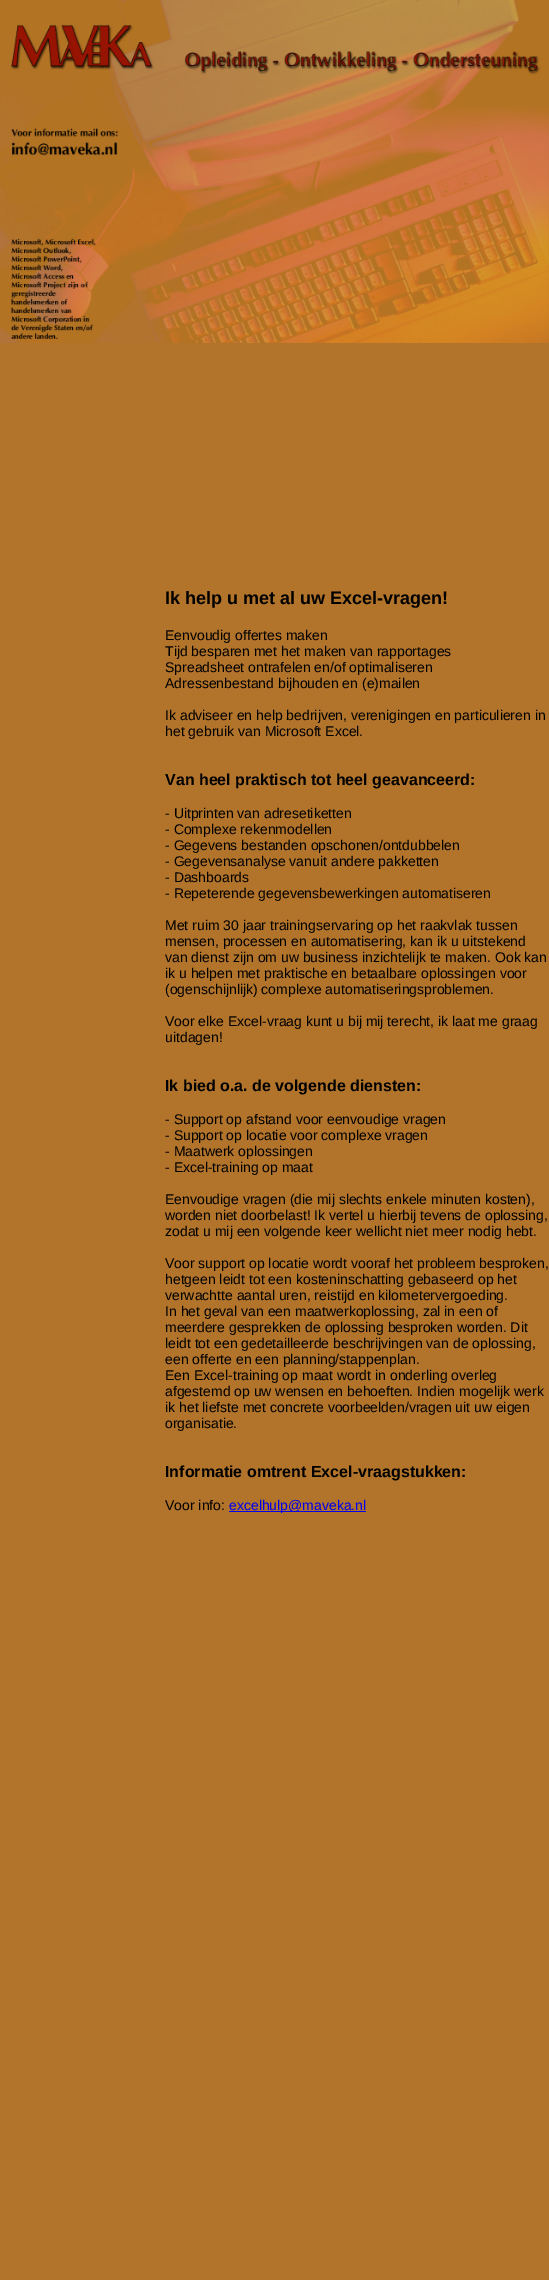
%!PS-Adobe-3.0
%%BoundingBox: 0 0 549 2280
%%LanguageLevel: 3
%%Pages: 1
%%EndComments
%%BeginProlog
/setink { 3 { 255 div 3 1 roll } repeat setrgbcolor } def
/usefont { [ exch dup neg 0 0 3 -1 roll 0 0 ] selectfont } def
/drawtext { setink usefont moveto show } def
/fillbox { setink rectfill } def
/drawimage { 5 dict begin { /h /w /y /x /name } { exch def } forall
  gsave x y translate w h scale
  w h 8 [w 0 0 h 0 0] name (r) file false 3 colorimage grestore end } def
%%EndProlog
%%BeginSetup
<< /PageSize [549 2280] >> setpagedevice
%%EndSetup
%%Page: 1 1
0 2280 translate 1 -1 scale
4 setmiterlimit
0 0 549 2280 178 115 43 fillbox
(assets/img1.rgb) 0 0 549 343 drawimage
(Ik help u met al uw Excel-vragen!) 165 604 /LiberationSans-Bold 18 0 0 0 drawtext
(Eenvoudig offertes maken) 165 640 /LiberationSans-Regular 14 0 0 0 drawtext
(Tijd besparen met het maken van rapportages) 165 656 /LiberationSans-Regular 14 0 0 0 drawtext
(Spreadsheet ontrafelen en/of optimaliseren) 165 672 /LiberationSans-Regular 14 0 0 0 drawtext
(Adressenbestand bijhouden en \(e\)mailen) 165 688 /LiberationSans-Regular 14 0 0 0 drawtext
(Ik adviseer en help bedrijven, verenigingen en particulieren in) 165 720 /LiberationSans-Regular 14 0 0 0 drawtext
(het gebruik van Microsoft Excel.) 165 736 /LiberationSans-Regular 14 0 0 0 drawtext
(Van heel praktisch tot heel geavanceerd:) 165 785 /LiberationSans-Bold 16 0 0 0 drawtext
(- Uitprinten van adresetiketten) 165 818 /LiberationSans-Regular 14 0 0 0 drawtext
(- Complexe rekenmodellen) 165 834 /LiberationSans-Regular 14 0 0 0 drawtext
(- Gegevens bestanden opschonen/ontdubbelen) 165 850 /LiberationSans-Regular 14 0 0 0 drawtext
(- Gegevensanalyse vanuit andere pakketten) 165 866 /LiberationSans-Regular 14 0 0 0 drawtext
(- Dashboards) 165 882 /LiberationSans-Regular 14 0 0 0 drawtext
(- Repeterende gegevensbewerkingen automatiseren) 165 898 /LiberationSans-Regular 14 0 0 0 drawtext
(Met ruim 30 jaar trainingservaring op het raakvlak tussen) 165 930 /LiberationSans-Regular 14 0 0 0 drawtext
(mensen, processen en automatisering, kan ik u uitstekend) 165 946 /LiberationSans-Regular 14 0 0 0 drawtext
(van dienst zijn om uw business inzichtelijk te maken. Ook kan) 165 962 /LiberationSans-Regular 14 0 0 0 drawtext
(ik u helpen met praktische en betaalbare oplossingen voor) 165 978 /LiberationSans-Regular 14 0 0 0 drawtext
(\(ogenschijnlijk\) complexe automatiseringsproblemen.) 165 994 /LiberationSans-Regular 14 0 0 0 drawtext
(Voor elke Excel-vraag kunt u bij mij terecht, ik laat me graag) 165 1026 /LiberationSans-Regular 14 0 0 0 drawtext
(uitdagen!) 165 1042 /LiberationSans-Regular 14 0 0 0 drawtext
(Ik bied o.a. de volgende diensten:) 165 1091 /LiberationSans-Bold 16 0 0 0 drawtext
(- Support op afstand voor eenvoudige vragen) 165 1124 /LiberationSans-Regular 14 0 0 0 drawtext
(- Support op locatie voor complexe vragen) 165 1140 /LiberationSans-Regular 14 0 0 0 drawtext
(- Maatwerk oplossingen) 165 1156 /LiberationSans-Regular 14 0 0 0 drawtext
(- Excel-training op maat) 165 1172 /LiberationSans-Regular 14 0 0 0 drawtext
(Eenvoudige vragen \(die mij slechts enkele minuten kosten\),) 165 1204 /LiberationSans-Regular 14 0 0 0 drawtext
(worden niet doorbelast! Ik vertel u hierbij tevens de oplossing,) 165 1220 /LiberationSans-Regular 14 0 0 0 drawtext
(zodat u mij een volgende keer wellicht niet meer nodig hebt.) 165 1236 /LiberationSans-Regular 14 0 0 0 drawtext
(Voor support op locatie wordt vooraf het probleem besproken,) 165 1268 /LiberationSans-Regular 14 0 0 0 drawtext
(hetgeen leidt tot een kosteninschatting gebaseerd op het) 165 1284 /LiberationSans-Regular 14 0 0 0 drawtext
(verwachtte aantal uren, reistijd en kilometervergoeding.) 165 1300 /LiberationSans-Regular 14 0 0 0 drawtext
(In het geval van een maatwerkoplossing, zal in een of) 165 1316 /LiberationSans-Regular 14 0 0 0 drawtext
(meerdere gesprekken de oplossing besproken worden. Dit) 165 1332 /LiberationSans-Regular 14 0 0 0 drawtext
(leidt tot een gedetailleerde beschrijvingen van de oplossing,) 165 1348 /LiberationSans-Regular 14 0 0 0 drawtext
(een offerte en een planning/stappenplan.) 165 1364 /LiberationSans-Regular 14 0 0 0 drawtext
(Een Excel-training op maat wordt in onderling overleg) 165 1380 /LiberationSans-Regular 14 0 0 0 drawtext
(afgestemd op uw wensen en behoeften. Indien mogelijk werk) 165 1396 /LiberationSans-Regular 14 0 0 0 drawtext
(ik het liefste met concrete voorbeelden/vragen uit uw eigen) 165 1412 /LiberationSans-Regular 14 0 0 0 drawtext
(organisatie.) 165 1428 /LiberationSans-Regular 14 0 0 0 drawtext
(Informatie omtrent Excel-vraagstukken:) 165 1477 /LiberationSans-Bold 16 0 0 0 drawtext
(Voor info:) 165 1510 /LiberationSans-Regular 14 0 0 0 drawtext
229 1511 137 1 0 0 238 fillbox
(excelhulp@maveka.nl) 229 1510 /LiberationSans-Regular 14 0 0 238 drawtext
showpage
%%EOF
